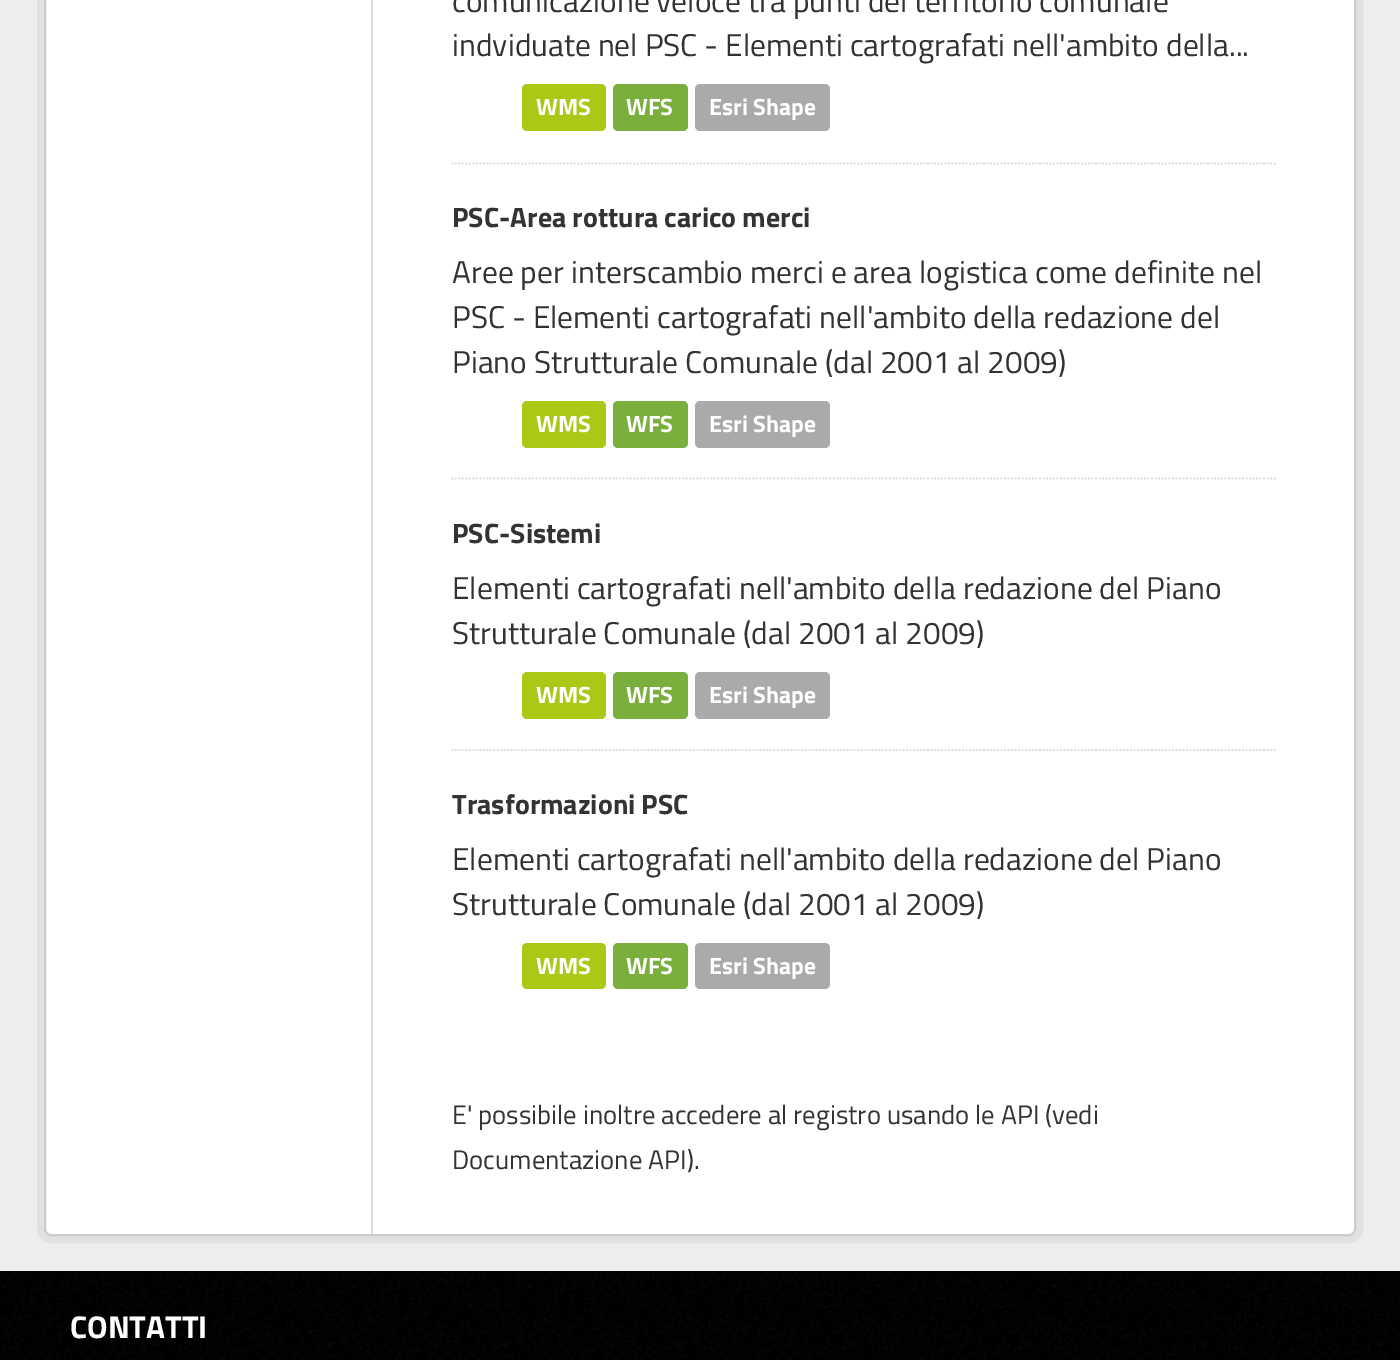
%!PS-Adobe-3.0
%%BoundingBox: 0 0 1400 1360
%%LanguageLevel: 3
%%Pages: 1
%%EndComments
%%BeginProlog
/setink { 3 { 255 div 3 1 roll } repeat setrgbcolor } def
/usefont { [ exch dup neg 0 0 3 -1 roll 0 0 ] selectfont } def
/drawtext { setink usefont moveto show } def
/fillbox { setink rectfill } def
/rrect { 5 dict begin { /r /h /w /y /x } { exch def } forall
  x r add y moveto x w add y 2 copy h add r arct x w add y h add x 1 index r arct
  x y h add x y r arct x y 2 copy exch w add exch r arct closepath end } def
/drawimage { 5 dict begin { /h /w /y /x /name } { exch def } forall
  gsave x y translate w h scale
  w h 8 [w 0 0 h 0 0] name (r) file false 3 colorimage grestore end } def
%%EndProlog
%%BeginSetup
<< /PageSize [1400 1360] >> setpagedevice
%%EndSetup
%%Page: 1 1
0 1360 translate 1 -1 scale
4 setmiterlimit
0 0 1400 1360 0 0 0 fillbox
0 0 1400 1271 237 237 237 fillbox
225 225 225 setink
7 setlinewidth
40.5 -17.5 1319 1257 10.5 rrect stroke
255 255 255 setink
45 -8 1310 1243 6 rrect gsave fill grestore
204 204 204 setink
2 setlinewidth
stroke
371 0 2 1234 221 221 221 fillbox
1.8 setlinewidth
[1.75 1.75] 0 setdash
451.5 163.5 moveto 1276 163.5 lineto stroke
(comunicazione veloce tra punti del territorio comunale) 452 12 /TitilliumWeb-Regular 31.5 51 51 51 drawtext
(indviduate nel PSC - Elementi cartografati nell'ambito della...) 452 56 /TitilliumWeb-Regular 31.5 51 51 51 drawtext
173 199 23 setink
522 84 84 47 5 rrect fill
(WMS) 536 115 /TitilliumWeb-Bold 23.5 255 255 255 drawtext
122 174 61 setink
613 84 75 47 5 rrect fill
(WFS) 626 115 /TitilliumWeb-Bold 23.5 255 255 255 drawtext
170 170 170 setink
695 84 135 47 5 rrect fill
(Esri Shape) 709 115 /TitilliumWeb-Bold 23.5 255 255 255 drawtext
221 221 221 setink
451.5 478.5 moveto 1276 478.5 lineto stroke
(PSC-Area rottura carico merci) 452 227 /TitilliumWeb-Bold 28 51 51 51 drawtext
(Aree per interscambio merci e area logistica come definite nel) 452 283 /TitilliumWeb-Regular 31.5 51 51 51 drawtext
(PSC - Elementi cartografati nell'ambito della redazione del) 452 328 /TitilliumWeb-Regular 31.5 51 51 51 drawtext
(Piano Strutturale Comunale \(dal 2001 al 2009\)) 452 373 /TitilliumWeb-Regular 31.5 51 51 51 drawtext
173 199 23 setink
522 401 84 47 5 rrect fill
(WMS) 536 432 /TitilliumWeb-Bold 23.5 255 255 255 drawtext
122 174 61 setink
613 401 75 47 5 rrect fill
(WFS) 626 432 /TitilliumWeb-Bold 23.5 255 255 255 drawtext
170 170 170 setink
695 401 135 47 5 rrect fill
(Esri Shape) 709 432 /TitilliumWeb-Bold 23.5 255 255 255 drawtext
221 221 221 setink
451.5 750 moveto 1276 750 lineto stroke
(PSC-Sistemi) 452 543 /TitilliumWeb-Bold 28 51 51 51 drawtext
(Elementi cartografati nell'ambito della redazione del Piano) 452 599 /TitilliumWeb-Regular 31.5 51 51 51 drawtext
(Strutturale Comunale \(dal 2001 al 2009\)) 452 644 /TitilliumWeb-Regular 31.5 51 51 51 drawtext
173 199 23 setink
522 672 84 47 5 rrect fill
(WMS) 536 703 /TitilliumWeb-Bold 23.5 255 255 255 drawtext
122 174 61 setink
613 672 75 47 5 rrect fill
(WFS) 626 703 /TitilliumWeb-Bold 23.5 255 255 255 drawtext
170 170 170 setink
695 672 135 47 5 rrect fill
(Esri Shape) 709 703 /TitilliumWeb-Bold 23.5 255 255 255 drawtext
(Trasformazioni PSC) 452 814 /TitilliumWeb-Bold 28 51 51 51 drawtext
(Elementi cartografati nell'ambito della redazione del Piano) 452 870 /TitilliumWeb-Regular 31.5 51 51 51 drawtext
(Strutturale Comunale \(dal 2001 al 2009\)) 452 915 /TitilliumWeb-Regular 31.5 51 51 51 drawtext
173 199 23 setink
522 943 84 46 5 rrect fill
(WMS) 536 974 /TitilliumWeb-Bold 23.5 255 255 255 drawtext
122 174 61 setink
613 943 75 46 5 rrect fill
(WFS) 626 974 /TitilliumWeb-Bold 23.5 255 255 255 drawtext
170 170 170 setink
695 943 135 46 5 rrect fill
(Esri Shape) 709 974 /TitilliumWeb-Bold 23.5 255 255 255 drawtext
(E' possibile inoltre accedere al registro usando le API \(vedi) 452 1124 /TitilliumWeb-Regular 26.75 51 51 51 drawtext
(Documentazione API\).) 452 1169 /TitilliumWeb-Regular 26.75 51 51 51 drawtext
(assets/img1.rgb) 0 1271 1400 89 drawimage
(CONTATTI) 70 1338 /TitilliumWeb-Bold 31.5 255 255 255 drawtext
showpage
%%EOF
